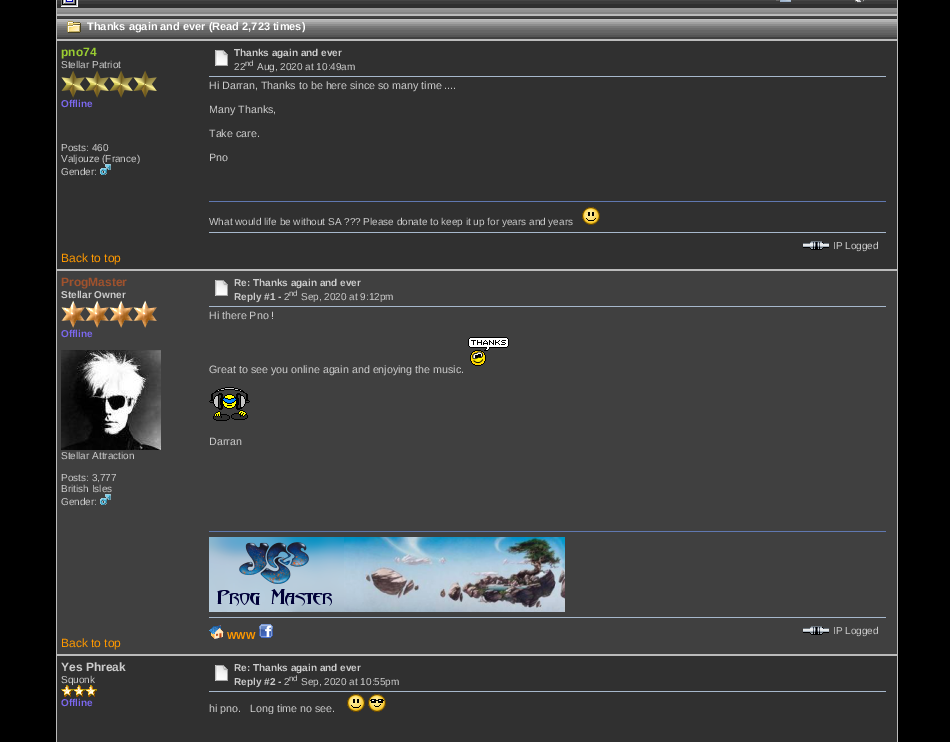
%!PS-Adobe-3.0
%%BoundingBox: 0 0 950 742
%%LanguageLevel: 3
%%Pages: 1
%%EndComments
%%BeginProlog
/setink { 3 { 255 div 3 1 roll } repeat setrgbcolor } def
/usefont { [ exch dup neg 0 0 3 -1 roll 0 0 ] selectfont } def
/drawtext { setink usefont moveto show } def
/fillbox { setink rectfill } def
/drawimage { 5 dict begin { /h /w /y /x /name } { exch def } forall
  gsave x y translate w h scale
  w h 8 [w 0 0 h 0 0] name (r) file false 3 colorimage grestore end } def
%%EndProlog
%%BeginSetup
<< /PageSize [950 742] >> setpagedevice
%%EndSetup
%%Page: 1 1
0 742 translate 1 -1 scale
4 setmiterlimit
0 0 950 742 0 0 0 fillbox
56 0 842 742 187 187 187 fillbox
57 0 840 14 48 48 48 fillbox
(assets/img1.rgb) 57 0 840 14 drawimage
(assets/img2.rgb) 61 0 17 7 drawimage
(assets/img3.rgb) 776 0 15 2 drawimage
(assets/img4.rgb) 854 0 12 3 drawimage
57 16 840 23 64 64 64 fillbox
(assets/img5.rgb) 57 18 840 19 drawimage
(assets/img6.rgb) 67 21 14 12 drawimage
(Thanks again and ever \(Read 2,723 times\)) 87 30 /LiberationSans-Bold 11 255 255 255 drawtext
57 41 840 140 48 48 48 fillbox
(pno74) 61 56 /LiberationSans-Bold 12 154 205 50 drawtext
(Stellar Patriot) 61 68 /LiberationSans-Regular 10 204 204 204 drawtext
(assets/img7.rgb) 61 70 24 28 drawimage
(assets/img7.rgb) 85 70 24 28 drawimage
(assets/img7.rgb) 109 70 24 28 drawimage
(assets/img7.rgb) 133 70 24 28 drawimage
(Offline) 61 107 /LiberationSans-Bold 10 123 104 238 drawtext
(Posts: 460) 61 151 /LiberationSans-Regular 10 204 204 204 drawtext
(Valjouze \(France\)) 61 162 /LiberationSans-Regular 10 204 204 204 drawtext
(Gender:) 61 175 /LiberationSans-Regular 10 204 204 204 drawtext
(assets/img8.rgb) 100 164 11 11 drawimage
209 76 677 1 167 184 204 fillbox
(assets/img9.rgb) 215 50 13 16 drawimage
(Thanks again and ever) 234 56 /LiberationSans-Bold 10 204 204 204 drawtext
(22) 234 70 /LiberationSans-Regular 10 204 204 204 drawtext
(nd) 245 66 /LiberationSans-Regular 8 204 204 204 drawtext
(Aug, 2020 at 10:49am) 257 70 /LiberationSans-Regular 10 204 204 204 drawtext
(Hi Darran, Thanks to be here since so many time ....) 209 89 /LiberationSans-Regular 10.7 204 204 204 drawtext
(Many Thanks,) 209 113 /LiberationSans-Regular 10.7 204 204 204 drawtext
(Take care.) 209 137 /LiberationSans-Regular 10.7 204 204 204 drawtext
(Pno) 209 161 /LiberationSans-Regular 10.7 204 204 204 drawtext
57 181 840 88 48 48 48 fillbox
209 201 677 1 96 120 176 fillbox
(What would life be without SA ??? Please donate to keep it up for years and years) 209 225 /LiberationSans-Regular 10 204 204 204 drawtext
(assets/img10.rgb) 582 207 18 18 drawimage
209 232 677 1 167 184 204 fillbox
(assets/img11.rgb) 803 241 26 9 drawimage
(IP Logged) 833 249 /LiberationSans-Regular 10 204 204 204 drawtext
(Back to top) 61 262 /LiberationSans-Regular 12 255 153 0 drawtext
57 271 840 240 64 64 64 fillbox
(ProgMaster) 61 286 /LiberationSans-Bold 12 160 82 45 drawtext
(Stellar Owner) 61 298 /LiberationSans-Bold 10 204 204 204 drawtext
(assets/img12.rgb) 61 300 24 28 drawimage
(assets/img12.rgb) 85 300 24 28 drawimage
(assets/img12.rgb) 109 300 24 28 drawimage
(assets/img12.rgb) 133 300 24 28 drawimage
(Offline) 61 337 /LiberationSans-Bold 10 123 104 238 drawtext
(assets/img13.rgb) 61 350 100 100 drawimage
(Stellar Attraction) 61 459 /LiberationSans-Regular 10 204 204 204 drawtext
(Posts: 3,777) 61 481 /LiberationSans-Regular 10 204 204 204 drawtext
(British Isles) 61 492 /LiberationSans-Regular 10 204 204 204 drawtext
(Gender:) 61 505 /LiberationSans-Regular 10 204 204 204 drawtext
(assets/img14.rgb) 100 494 11 11 drawimage
209 306 677 1 167 184 204 fillbox
(assets/img15.rgb) 215 280 13 16 drawimage
(Re: Thanks again and ever) 234 286 /LiberationSans-Bold 10 204 204 204 drawtext
(Reply #1 -) 234 300 /LiberationSans-Bold 10 204 204 204 drawtext
(2) 284 300 /LiberationSans-Regular 10 204 204 204 drawtext
(nd) 289 296 /LiberationSans-Regular 8 204 204 204 drawtext
(Sep, 2020 at 9:12pm) 301 300 /LiberationSans-Regular 10 204 204 204 drawtext
(Hi there Pno !) 209 319 /LiberationSans-Regular 10.7 204 204 204 drawtext
(assets/img16.rgb) 468 337 41 29 drawimage
(Great to see you online again and enjoying the music.) 209 373 /LiberationSans-Regular 10.7 204 204 204 drawtext
(assets/img17.rgb) 209 387 41 34 drawimage
(Darran) 209 445 /LiberationSans-Regular 10.7 204 204 204 drawtext
57 511 840 143 64 64 64 fillbox
209 531 677 1 96 120 176 fillbox
(assets/img18.rgb) 209 537 356 75 drawimage
209 617 677 1 167 184 204 fillbox
(assets/img19.rgb) 209 625 15 14 drawimage
(WWW) 227 639 /LiberationSans-Bold 10 255 153 0 drawtext
(assets/img20.rgb) 259 624 14 14 drawimage
(assets/img21.rgb) 803 626 26 9 drawimage
(IP Logged) 833 634 /LiberationSans-Regular 10 204 204 204 drawtext
(Back to top) 61 647 /LiberationSans-Regular 12 255 153 0 drawtext
57 656 840 86 48 48 48 fillbox
(Yes Phreak) 61 671 /LiberationSans-Bold 12 204 204 204 drawtext
(Squonk) 61 683 /LiberationSans-Regular 10 204 204 204 drawtext
(assets/img22.rgb) 61 685 12 12 drawimage
(assets/img23.rgb) 73 685 12 12 drawimage
(assets/img24.rgb) 85 685 12 12 drawimage
(Offline) 61 706 /LiberationSans-Bold 10 123 104 238 drawtext
209 691 677 1 167 184 204 fillbox
(assets/img9.rgb) 215 665 13 16 drawimage
(Re: Thanks again and ever) 234 671 /LiberationSans-Bold 10 204 204 204 drawtext
(Reply #2 -) 234 685 /LiberationSans-Bold 10 204 204 204 drawtext
(2) 284 685 /LiberationSans-Regular 10 204 204 204 drawtext
(nd) 289 681 /LiberationSans-Regular 8 204 204 204 drawtext
(Sep, 2020 at 10:55pm) 301 685 /LiberationSans-Regular 10 204 204 204 drawtext
gsave
209 694 677 20 rectclip
(hi pno.   Long time no see.) 209 712 /LiberationSans-Regular 10.7 204 204 204 drawtext
grestore
(assets/img25.rgb) 347 694 18 18 drawimage
(assets/img26.rgb) 368 694 18 18 drawimage
showpage
%%EOF
